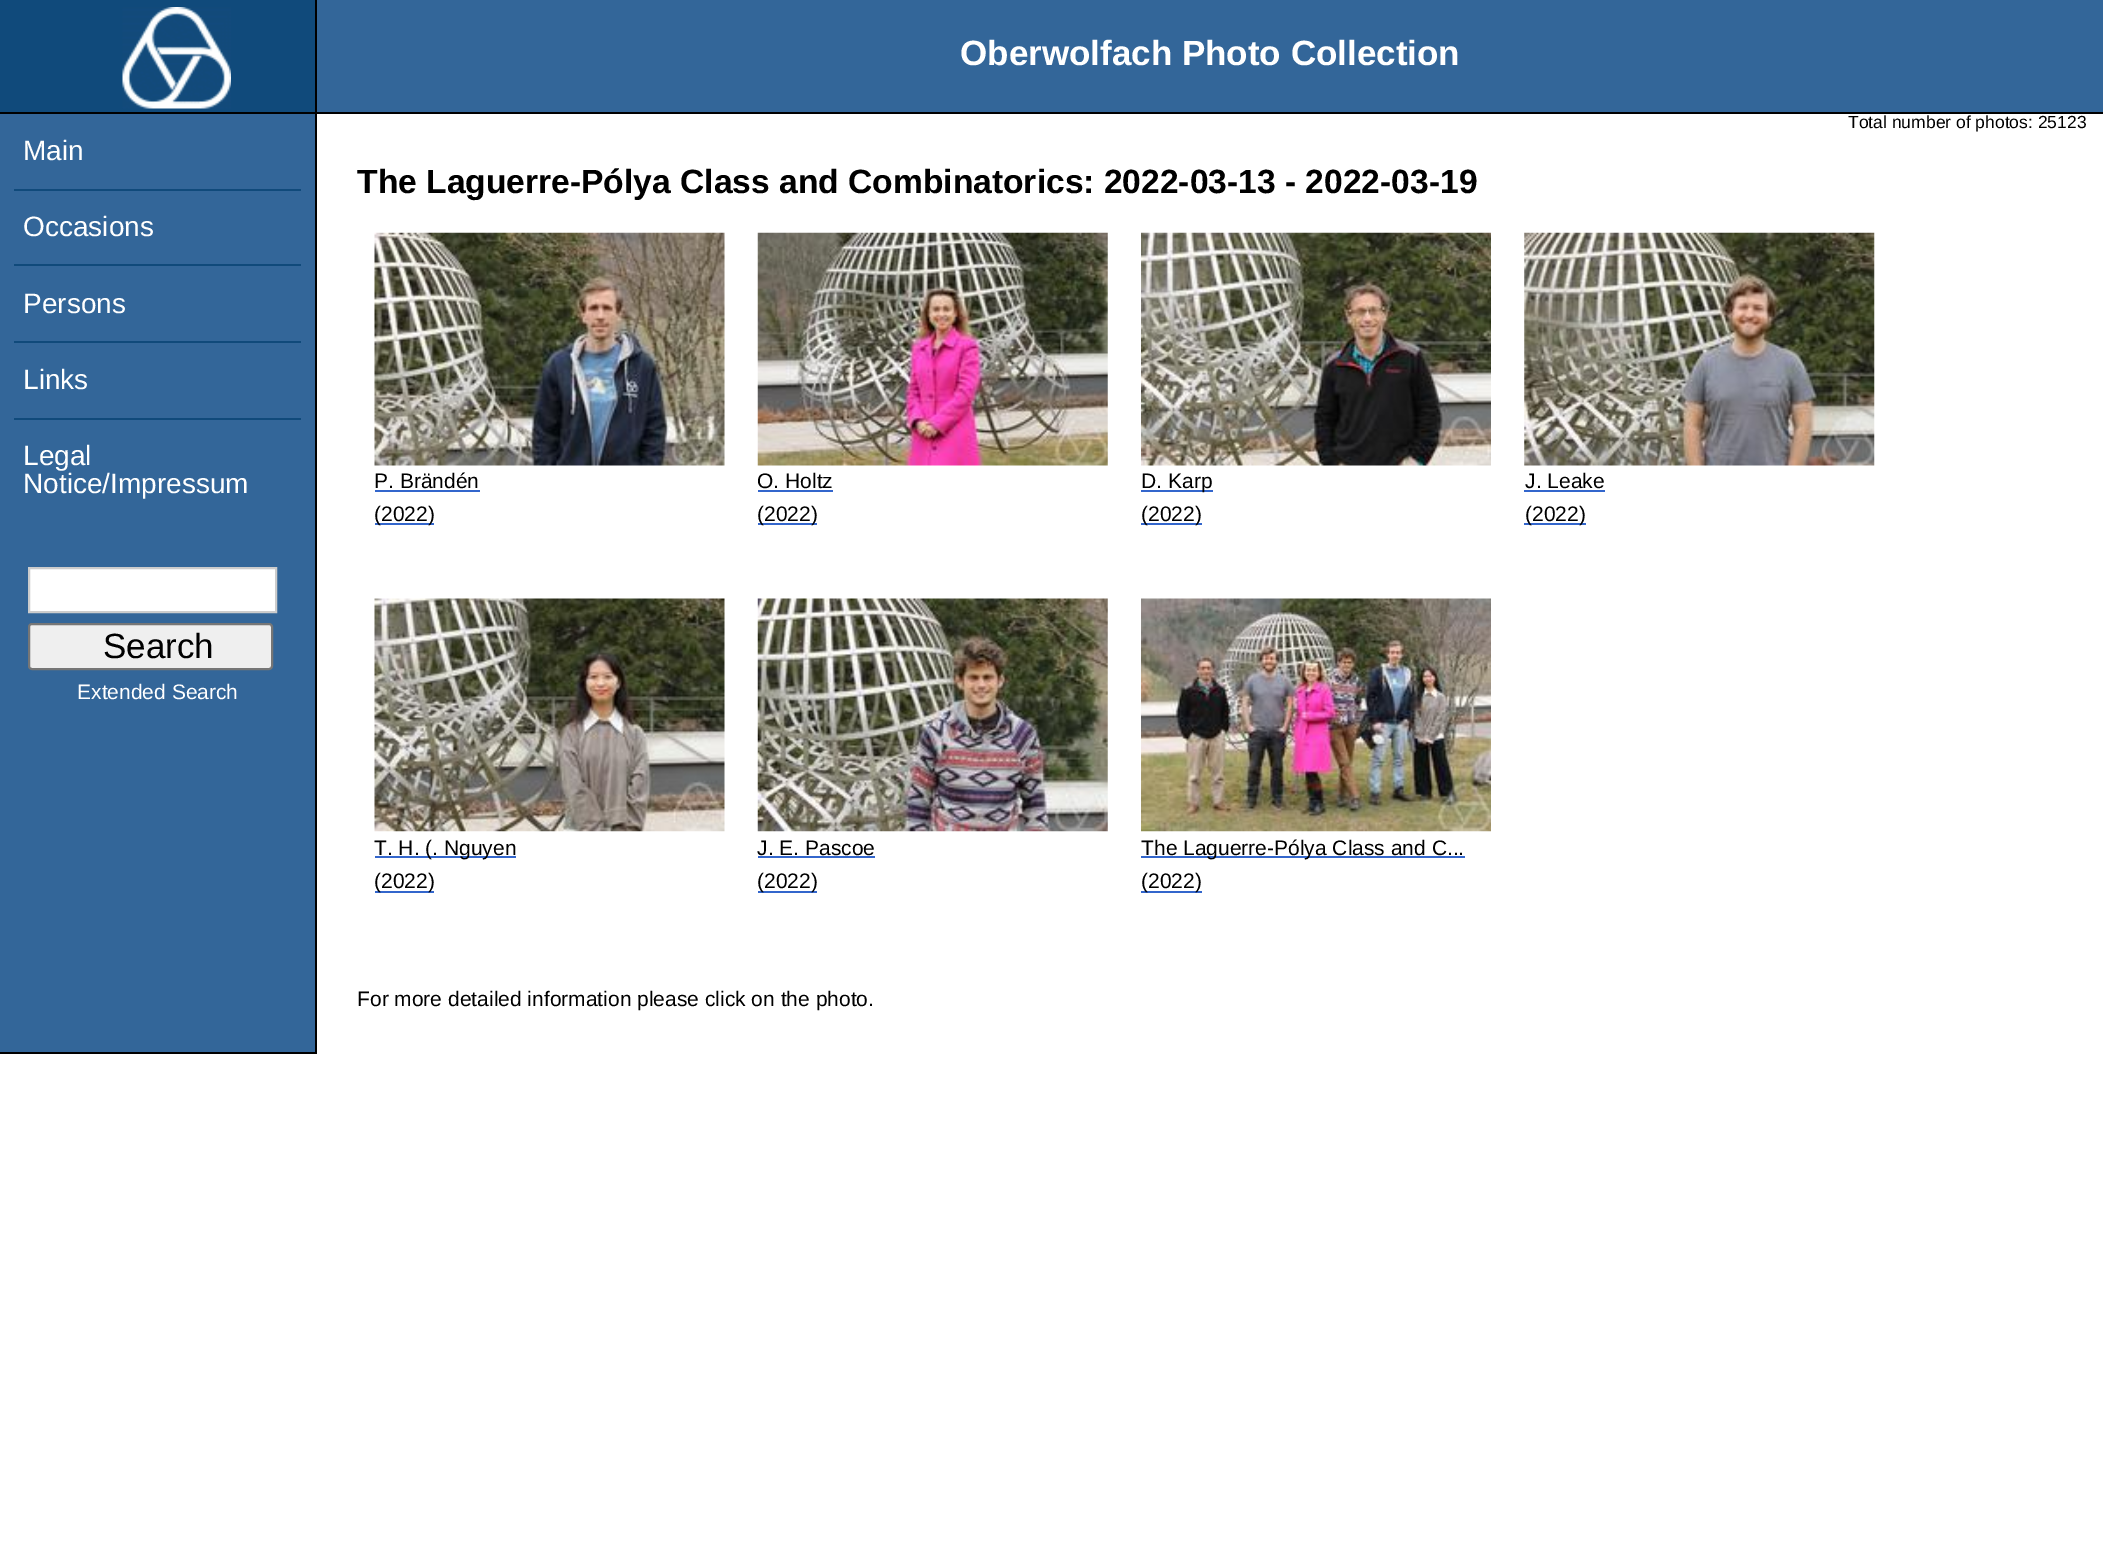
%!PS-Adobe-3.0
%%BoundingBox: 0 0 2103 1562
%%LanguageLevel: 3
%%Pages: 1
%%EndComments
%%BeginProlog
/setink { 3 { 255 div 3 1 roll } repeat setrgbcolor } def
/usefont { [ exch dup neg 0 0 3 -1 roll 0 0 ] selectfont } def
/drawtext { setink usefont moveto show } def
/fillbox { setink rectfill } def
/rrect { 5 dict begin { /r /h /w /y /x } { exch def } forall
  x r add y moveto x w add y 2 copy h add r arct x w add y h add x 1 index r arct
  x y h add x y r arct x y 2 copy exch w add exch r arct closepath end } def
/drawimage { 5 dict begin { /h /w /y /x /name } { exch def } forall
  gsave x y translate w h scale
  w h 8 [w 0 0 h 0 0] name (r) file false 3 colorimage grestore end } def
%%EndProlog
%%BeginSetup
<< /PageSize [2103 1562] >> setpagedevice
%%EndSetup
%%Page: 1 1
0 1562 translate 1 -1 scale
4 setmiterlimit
0 0 2103 1562 255 255 255 fillbox
317 0 1786 112 51 102 153 fillbox
0 112 2103 2 0 0 0 fillbox
0 0 315 112 16 74 123 fillbox
315 0 2 112 0 0 0 fillbox
(assets/img1.rgb) 122 7 109 102 drawimage
(Oberwolfach Photo Collection) 960 65 /LiberationSans-Bold 35 255 255 255 drawtext
(Total number of photos: 25123) 1848 128 /LiberationSans-Regular 17.5 0 0 0 drawtext
0 114 315 938 51 102 153 fillbox
315 114 2 940 0 0 0 fillbox
0 1052 317 2 0 0 0 fillbox
(Main) 23 160 /LiberationSans-Regular 28 255 255 255 drawtext
14 189 287 2 16 74 123 fillbox
(Occasions) 23 236 /LiberationSans-Regular 28 255 255 255 drawtext
14 264 287 2 16 74 123 fillbox
(Persons) 23 313 /LiberationSans-Regular 28 255 255 255 drawtext
14 341 287 2 16 74 123 fillbox
(Links) 23 389 /LiberationSans-Regular 28 255 255 255 drawtext
14 418 287 2 16 74 123 fillbox
(Legal) 23 465 /LiberationSans-Regular 28 255 255 255 drawtext
(Notice/Impressum) 23 493 /LiberationSans-Regular 28 255 255 255 drawtext
29 568 moveto 276 568 lineto 276 612 lineto 29 612 lineto closepath gsave fill grestore
204 204 204 setink
2 setlinewidth
stroke
239 239 239 setink
29 624 243 45 3 rrect gsave fill grestore
118 118 118 setink
stroke
(Search) 103 658 /LiberationSans-Regular 35 0 0 0 drawtext
(Extended Search) 77 699 /LiberationSans-Regular 21 255 255 255 drawtext
(The Laguerre-Pólya Class and Combinatorics: 2022-03-13 - 2022-03-19) 357 193 /LiberationSans-Bold 33.6 0 0 0 drawtext
(assets/img2.rgb) 374 232 351 234 drawimage
(P. Brändén) 374 488 /LiberationSans-Regular 21 0 0 0 drawtext
375 490 105 2 51 102 204 fillbox
375 523 59 2 51 102 204 fillbox
(\(2022\)) 374 521 /LiberationSans-Regular 21 0 0 0 drawtext
(assets/img3.rgb) 757 232 351 234 drawimage
(O. Holtz) 757 488 /LiberationSans-Regular 21 0 0 0 drawtext
758 490 75 2 51 102 204 fillbox
758 523 59 2 51 102 204 fillbox
(\(2022\)) 757 521 /LiberationSans-Regular 21 0 0 0 drawtext
(assets/img4.rgb) 1141 232 350 234 drawimage
1141 490 72 2 51 102 204 fillbox
(D. Karp) 1141 488 /LiberationSans-Regular 21 0 0 0 drawtext
1141 523 61 2 51 102 204 fillbox
(\(2022\)) 1141 521 /LiberationSans-Regular 21 0 0 0 drawtext
(assets/img5.rgb) 1524 232 351 234 drawimage
(J. Leake) 1525 488 /LiberationSans-Regular 21 0 0 0 drawtext
1524 490 81 2 51 102 204 fillbox
1524 523 62 2 51 102 204 fillbox
(\(2022\)) 1525 521 /LiberationSans-Regular 21 0 0 0 drawtext
(assets/img6.rgb) 374 598 351 234 drawimage
375 856 141 2 51 102 204 fillbox
(T. H. \(. Nguyen) 374 855 /LiberationSans-Regular 21 0 0 0 drawtext
375 891 59 2 51 102 204 fillbox
(\(2022\)) 374 888 /LiberationSans-Regular 21 0 0 0 drawtext
(assets/img7.rgb) 757 598 351 234 drawimage
(J. E. Pascoe) 757 855 /LiberationSans-Regular 21 0 0 0 drawtext
758 856 117 2 51 102 204 fillbox
758 891 59 2 51 102 204 fillbox
(\(2022\)) 757 888 /LiberationSans-Regular 21 0 0 0 drawtext
(assets/img8.rgb) 1141 598 350 234 drawimage
1141 856 324 2 51 102 204 fillbox
(The Laguerre-Pólya Class and C...) 1141 855 /LiberationSans-Regular 21 0 0 0 drawtext
1141 891 61 2 51 102 204 fillbox
(\(2022\)) 1141 888 /LiberationSans-Regular 21 0 0 0 drawtext
(For more detailed information please click on the photo.) 357 1006 /LiberationSans-Regular 21 0 0 0 drawtext
showpage
%%EOF
